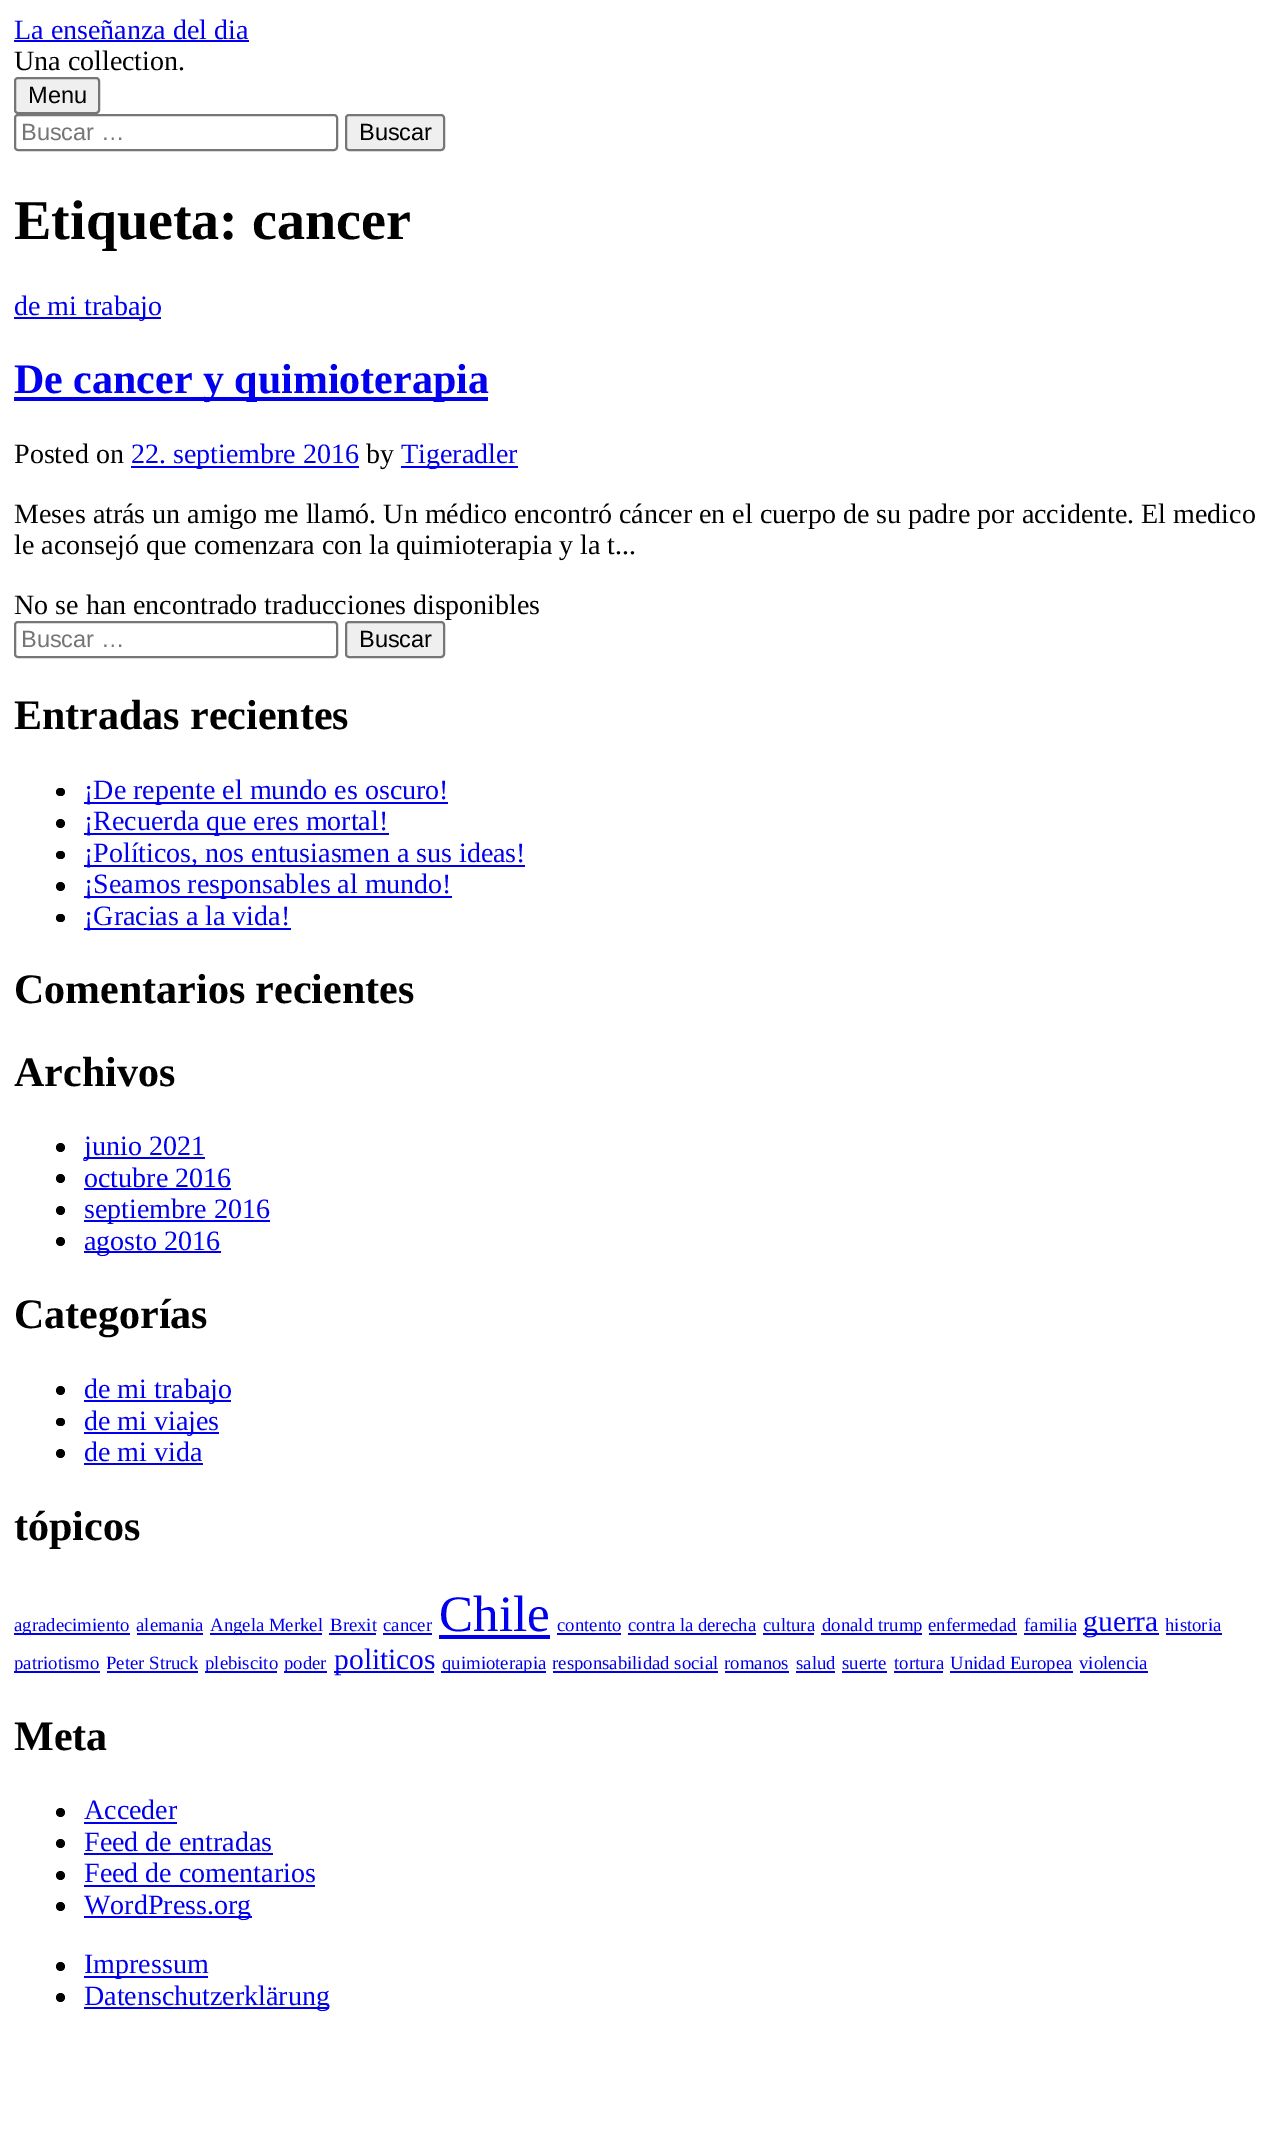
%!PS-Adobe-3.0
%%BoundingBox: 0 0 1281 2129
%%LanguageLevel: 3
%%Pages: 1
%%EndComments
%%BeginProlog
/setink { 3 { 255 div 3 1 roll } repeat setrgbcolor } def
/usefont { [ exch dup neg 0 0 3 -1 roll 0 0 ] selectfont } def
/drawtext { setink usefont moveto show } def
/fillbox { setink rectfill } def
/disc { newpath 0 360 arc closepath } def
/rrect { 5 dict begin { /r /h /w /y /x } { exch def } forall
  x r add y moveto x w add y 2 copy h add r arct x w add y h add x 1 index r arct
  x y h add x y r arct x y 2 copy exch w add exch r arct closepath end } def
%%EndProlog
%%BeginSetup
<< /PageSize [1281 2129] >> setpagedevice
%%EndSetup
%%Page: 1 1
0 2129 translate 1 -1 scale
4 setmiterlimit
0 0 1281 2129 255 255 255 fillbox
(La enseñanza del dia) 14 39 /LiberationSerif-Regular 28 0 0 238 drawtext
14 40 235 2 0 0 238 fillbox
(Una collection.) 14 70 /LiberationSerif-Regular 28 0 0 0 drawtext
239 239 239 setink
15 78 84 35 3 rrect gsave fill grestore
118 118 118 setink
2 setlinewidth
stroke
(Menu) 28 103 /LiberationSans-Regular 23.5 0 0 0 drawtext
118 118 118 setink
15 115 322 35 3 rrect stroke
(Buscar …) 21 140 /LiberationSans-Regular 23.5 117 117 117 drawtext
239 239 239 setink
346 115 98 35 3 rrect gsave fill grestore
118 118 118 setink
stroke
(Buscar) 359 140 /LiberationSans-Regular 23.5 0 0 0 drawtext
(Etiqueta: cancer) 14 239 /LiberationSerif-Bold 56 0 0 0 drawtext
14 317 147 2 0 0 238 fillbox
(de mi trabajo) 14 315 /LiberationSerif-Regular 28 0 0 238 drawtext
14 397 474 4 0 0 238 fillbox
(De cancer y quimioterapia) 14 393 /LiberationSerif-Bold 42 0 0 238 drawtext
(Posted on) 14 463 /LiberationSerif-Regular 28 0 0 0 drawtext
131 466 228 2 0 0 238 fillbox
(22. septiembre 2016) 131 463 /LiberationSerif-Regular 28 0 0 238 drawtext
(by) 366 463 /LiberationSerif-Regular 28 0 0 0 drawtext
401 466 117 2 0 0 238 fillbox
(Tigeradler) 401 463 /LiberationSerif-Regular 28 0 0 238 drawtext
(Meses atrás un amigo me llamó. Un médico encontró cáncer en el cuerpo de su padre por accidente. El medico) 14 523 /LiberationSerif-Regular 28 0 0 0 drawtext
(le aconsejó que comenzara con la quimioterapia y la t...) 14 554 /LiberationSerif-Regular 28 0 0 0 drawtext
(No se han encontrado traducciones disponibles) 14 614 /LiberationSerif-Regular 28 0 0 0 drawtext
118 118 118 setink
15 622 322 35 3 rrect stroke
(Buscar …) 21 647 /LiberationSans-Regular 23.5 117 117 117 drawtext
239 239 239 setink
346 622 98 35 3 rrect gsave fill grestore
118 118 118 setink
stroke
(Buscar) 359 647 /LiberationSans-Regular 23.5 0 0 0 drawtext
(Entradas recientes) 14 729 /LiberationSerif-Bold 42 0 0 0 drawtext
56 788 9 8 4 rrect fill
84 802 364 2 0 0 238 fillbox
(¡De repente el mundo es oscuro!) 84 799 /LiberationSerif-Regular 28 0 0 238 drawtext
0 0 0 setink
60.5 823.5 4.5 disc fill
84 833 305 2 0 0 238 fillbox
(¡Recuerda que eres mortal!) 84 830 /LiberationSerif-Regular 28 0 0 238 drawtext
0 0 0 setink
56 851 9 8 4 rrect fill
84 865 441 2 0 0 238 fillbox
(¡Políticos, nos entusiasmen a sus ideas!) 84 862 /LiberationSerif-Regular 28 0 0 238 drawtext
0 0 0 setink
60.5 886.5 4.5 disc fill
84 896 368 2 0 0 238 fillbox
(¡Seamos responsables al mundo!) 84 893 /LiberationSerif-Regular 28 0 0 238 drawtext
0 0 0 setink
56 914 9 8 4 rrect fill
84 928 207 2 0 0 238 fillbox
(¡Gracias a la vida!) 84 925 /LiberationSerif-Regular 28 0 0 238 drawtext
(Comentarios recientes) 14 1003 /LiberationSerif-Bold 42 0 0 0 drawtext
(Archivos) 14 1086 /LiberationSerif-Bold 42 0 0 0 drawtext
60.5 1147.5 4.5 disc fill
84 1157 121 2 0 0 238 fillbox
(junio 2021) 84 1155 /LiberationSerif-Regular 28 0 0 238 drawtext
0 0 0 setink
60.5 1178.5 4.5 disc fill
(octubre 2016) 84 1187 /LiberationSerif-Regular 28 0 0 238 drawtext
84 1188 147 2 0 0 238 fillbox
0 0 0 setink
60.5 1210.5 4.5 disc fill
84 1220 186 2 0 0 238 fillbox
(septiembre 2016) 84 1218 /LiberationSerif-Regular 28 0 0 238 drawtext
0 0 0 setink
60.5 1241.5 4.5 disc fill
84 1251 137 2 0 0 238 fillbox
(agosto 2016) 84 1250 /LiberationSerif-Regular 28 0 0 238 drawtext
(Categorías) 14 1328 /LiberationSerif-Bold 42 0 0 0 drawtext
60.5 1390.5 4.5 disc fill
84 1400 147 2 0 0 238 fillbox
(de mi trabajo) 84 1398 /LiberationSerif-Regular 28 0 0 238 drawtext
0 0 0 setink
56 1418 9 8 4 rrect fill
84 1432 135 2 0 0 238 fillbox
(de mi viajes) 84 1430 /LiberationSerif-Regular 28 0 0 238 drawtext
0 0 0 setink
60.5 1453.5 4.5 disc fill
(de mi vida) 84 1461 /LiberationSerif-Regular 28 0 0 238 drawtext
84 1463 119 2 0 0 238 fillbox
(tópicos) 14 1540 /LiberationSerif-Bold 42 0 0 0 drawtext
14 1633 116 2 0 0 238 fillbox
(agradecimiento) 14 1631 /LiberationSerif-Regular 18.75 0 0 238 drawtext
(alemania) 136 1631 /LiberationSerif-Regular 18.75 0 0 238 drawtext
137 1633 66 2 0 0 238 fillbox
210 1633 112 2 0 0 238 fillbox
(Angela Merkel) 210 1631 /LiberationSerif-Regular 18.75 0 0 238 drawtext
(Brexit) 330 1631 /LiberationSerif-Regular 18.75 0 0 238 drawtext
329 1633 47 2 0 0 238 fillbox
(cancer) 383 1631 /LiberationSerif-Regular 18.75 0 0 238 drawtext
383 1633 49 2 0 0 238 fillbox
(Chile) 439 1631 /LiberationSerif-Regular 51 0 0 238 drawtext
439 1635 111 4 0 0 238 fillbox
(contento) 557 1631 /LiberationSerif-Regular 18.75 0 0 238 drawtext
557 1633 64 2 0 0 238 fillbox
(contra la derecha) 628 1631 /LiberationSerif-Regular 18.75 0 0 238 drawtext
628 1633 128 2 0 0 238 fillbox
(cultura) 763 1631 /LiberationSerif-Regular 18.75 0 0 238 drawtext
763 1633 51 2 0 0 238 fillbox
821 1633 101 2 0 0 238 fillbox
(donald trump) 822 1631 /LiberationSerif-Regular 18.75 0 0 238 drawtext
(enfermedad) 928 1631 /LiberationSerif-Regular 18.75 0 0 238 drawtext
929 1633 88 2 0 0 238 fillbox
(familia) 1024 1631 /LiberationSerif-Regular 18.75 0 0 238 drawtext
1024 1633 52 2 0 0 238 fillbox
1083 1633 76 2 0 0 238 fillbox
(guerra) 1083 1631 /LiberationSerif-Regular 29.5 0 0 238 drawtext
(historia) 1165 1631 /LiberationSerif-Regular 18.75 0 0 238 drawtext
1166 1633 56 2 0 0 238 fillbox
14 1671 86 2 0 0 238 fillbox
(patriotismo) 14 1669 /LiberationSerif-Regular 18.75 0 0 238 drawtext
(Peter Struck) 106 1669 /LiberationSerif-Regular 18.75 0 0 238 drawtext
107 1671 91 2 0 0 238 fillbox
205 1671 72 2 0 0 238 fillbox
(plebiscito) 205 1669 /LiberationSerif-Regular 18.75 0 0 238 drawtext
284 1671 43 2 0 0 238 fillbox
(poder) 284 1669 /LiberationSerif-Regular 18.75 0 0 238 drawtext
334 1671 100 2 0 0 238 fillbox
(politicos) 334 1669 /LiberationSerif-Regular 29.5 0 0 238 drawtext
441 1671 105 2 0 0 238 fillbox
(quimioterapia) 442 1669 /LiberationSerif-Regular 18.75 0 0 238 drawtext
553 1671 165 2 0 0 238 fillbox
(responsabilidad social) 552 1669 /LiberationSerif-Regular 18.75 0 0 238 drawtext
(romanos) 724 1669 /LiberationSerif-Regular 18.75 0 0 238 drawtext
725 1671 64 2 0 0 238 fillbox
(salud) 796 1669 /LiberationSerif-Regular 18.75 0 0 238 drawtext
796 1671 39 2 0 0 238 fillbox
(suerte) 842 1669 /LiberationSerif-Regular 18.75 0 0 238 drawtext
842 1671 45 2 0 0 238 fillbox
(tortura) 894 1669 /LiberationSerif-Regular 18.75 0 0 238 drawtext
894 1671 49 2 0 0 238 fillbox
950 1671 123 2 0 0 238 fillbox
(Unidad Europea) 950 1669 /LiberationSerif-Regular 18.75 0 0 238 drawtext
(violencia) 1079 1669 /LiberationSerif-Regular 18.75 0 0 238 drawtext
1080 1671 68 2 0 0 238 fillbox
(Meta) 14 1750 /LiberationSerif-Bold 42 0 0 0 drawtext
60.5 1812.5 4.5 disc fill
(Acceder) 84 1819 /LiberationSerif-Regular 28 0 0 238 drawtext
84 1822 93 2 0 0 238 fillbox
0 0 0 setink
60.5 1843.5 4.5 disc fill
(Feed de entradas) 84 1851 /LiberationSerif-Regular 28 0 0 238 drawtext
84 1853 189 2 0 0 238 fillbox
0 0 0 setink
60.5 1875.5 4.5 disc fill
(Feed de comentarios) 84 1882 /LiberationSerif-Regular 28 0 0 238 drawtext
84 1885 231 2 0 0 238 fillbox
0 0 0 setink
60.5 1906.5 4.5 disc fill
84 1916 168 2 0 0 238 fillbox
(WordPress.org) 84 1914 /LiberationSerif-Regular 28 0 0 238 drawtext
0 0 0 setink
60.5 1966.5 4.5 disc fill
84 1976 124 2 0 0 238 fillbox
(Impressum) 84 1973 /LiberationSerif-Regular 28 0 0 238 drawtext
0 0 0 setink
60.5 1997.5 4.5 disc fill
84 2007 245 2 0 0 238 fillbox
(Datenschutzerklärung) 84 2005 /LiberationSerif-Regular 28 0 0 238 drawtext
showpage
%%EOF
